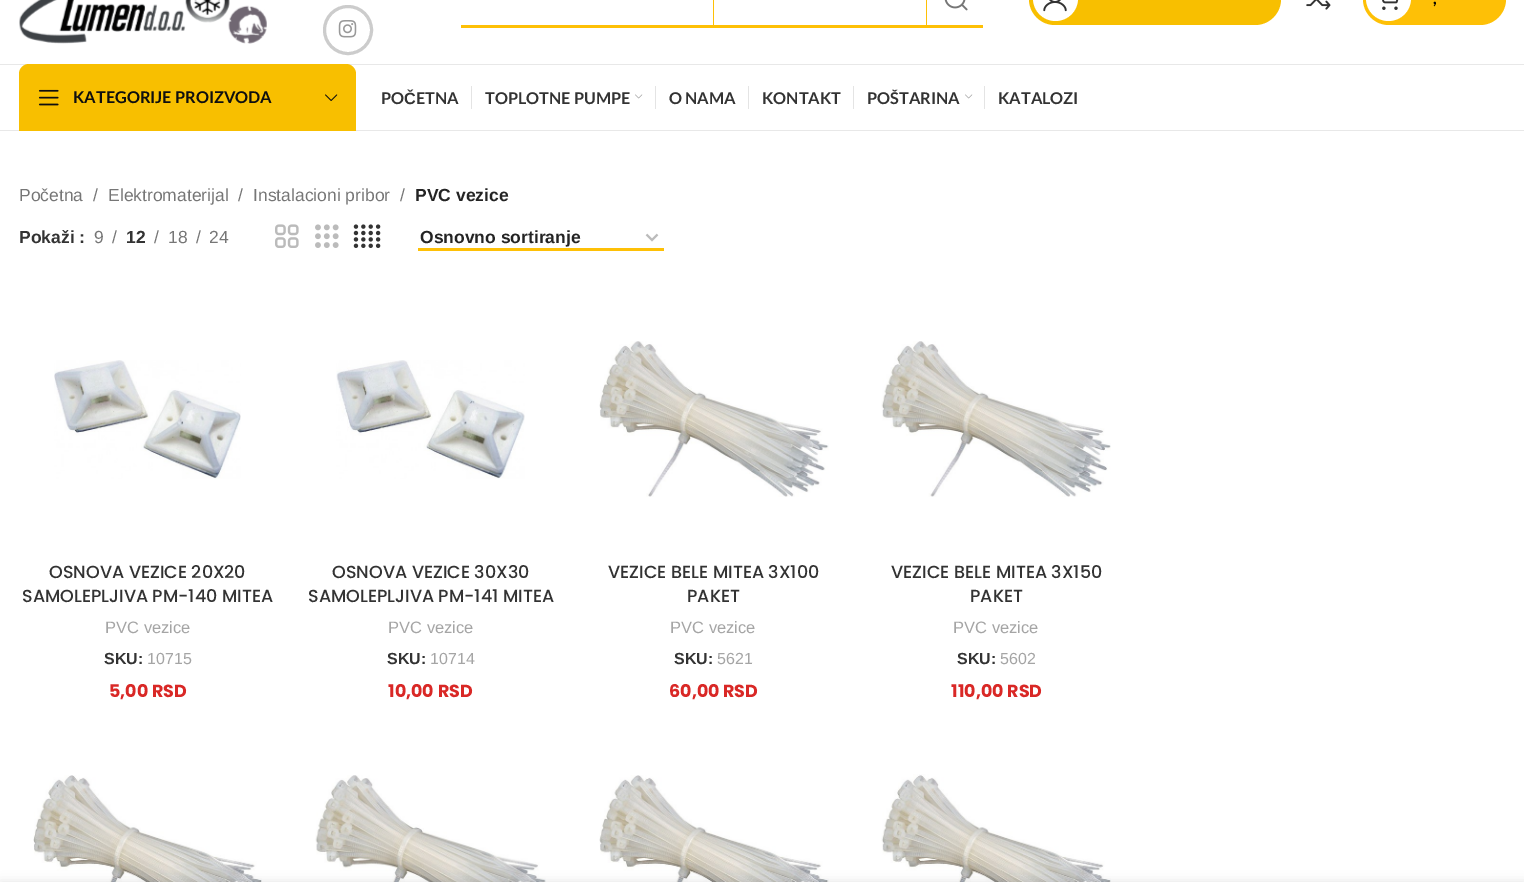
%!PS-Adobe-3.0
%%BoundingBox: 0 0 1524 882
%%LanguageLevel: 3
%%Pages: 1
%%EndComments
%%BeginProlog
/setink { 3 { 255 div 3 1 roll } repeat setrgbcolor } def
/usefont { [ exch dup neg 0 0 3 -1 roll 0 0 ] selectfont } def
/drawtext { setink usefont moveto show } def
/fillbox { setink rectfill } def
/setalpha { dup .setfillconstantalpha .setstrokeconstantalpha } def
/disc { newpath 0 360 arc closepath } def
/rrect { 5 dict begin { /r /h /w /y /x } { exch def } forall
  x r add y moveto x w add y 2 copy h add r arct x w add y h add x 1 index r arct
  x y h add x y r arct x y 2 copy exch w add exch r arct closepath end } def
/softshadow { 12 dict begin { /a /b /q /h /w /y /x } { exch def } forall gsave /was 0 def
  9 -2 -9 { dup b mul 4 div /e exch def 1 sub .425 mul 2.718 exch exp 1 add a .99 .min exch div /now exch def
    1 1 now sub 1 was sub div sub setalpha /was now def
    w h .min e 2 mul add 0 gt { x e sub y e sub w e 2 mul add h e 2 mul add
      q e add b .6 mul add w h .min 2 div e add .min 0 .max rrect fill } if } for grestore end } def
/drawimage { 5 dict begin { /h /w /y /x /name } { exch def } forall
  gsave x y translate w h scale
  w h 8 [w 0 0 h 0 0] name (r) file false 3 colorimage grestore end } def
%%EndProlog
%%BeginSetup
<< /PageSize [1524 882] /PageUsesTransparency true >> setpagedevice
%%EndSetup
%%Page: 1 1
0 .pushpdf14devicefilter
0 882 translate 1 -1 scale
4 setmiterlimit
0 0 1524 882 255 255 255 fillbox
0 64 1524 1 232 232 232 fillbox
(assets/img1.rgb) 19 0 248 44 drawimage
204 204 204 setink
3 setlinewidth
348 30 23.5 disc stroke
(assets/img2.rgb) 338 20 19 18 drawimage
926 0 1 25 254 192 6 fillbox
713 0 1 25 254 192 6 fillbox
(assets/img3.rgb) 944 0 24 11 drawimage
461 25 522 3 254 192 6 fillbox
248 191 0 setink
1029 -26 252 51 26 rrect fill
255 255 255 setink
1033 -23 45 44 22.5 rrect fill
(assets/img4.rgb) 1043 0 24 12 drawimage
(assets/img5.rgb) 1306 0 25 10 drawimage
254 192 6 setink
1363 -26 143 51 26 rrect fill
255 255 255 setink
1366 -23 45 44 22.5 rrect fill
(assets/img6.rgb) 1382 0 17 10 drawimage
(,) 1433 4 /Lato-Bold 16.25 0 0 0 drawtext
0 130 1524 1 232 232 232 fillbox
248 191 0 setink
29 64 moveto 346 64 lineto 351.5 64 356 68.5 356 74 curveto 356 131 lineto 19 131 lineto 19 74 lineto 19 68.5 23.5 64 29 64 curveto closepath fill
(assets/img7.rgb) 38 89 21 17 drawimage
(KATEGORIJE PROIZVODA) 73 103 /Lato-Bold 16.25 15 15 15 drawtext
(assets/img8.rgb) 325 94 13 7 drawimage
(PO) 381 104 /Lato-Bold 16.25 51 51 51 drawtext
(Č) 404 104 /LiberationSans-Bold 16.25 51 51 51 drawtext
(ETNA) 416 104 /Lato-Bold 16.25 51 51 51 drawtext
471 86 1 23 228 228 228 fillbox
(TOPLOTNE PUMPE) 485 104 /Lato-Bold 16.25 51 51 51 drawtext
(assets/img9.rgb) 635 94 8 5 drawimage
655 86 1 23 228 228 228 fillbox
(O NAMA) 669 104 /Lato-Bold 16.25 51 51 51 drawtext
748 86 1 23 228 228 228 fillbox
(KONTAKT) 762 104 /Lato-Bold 16.25 51 51 51 drawtext
853 86 1 23 228 228 228 fillbox
(POŠTARINA) 867 104 /Lato-Bold 16.25 51 51 51 drawtext
(assets/img9.rgb) 965 94 8 5 drawimage
984 86 1 23 228 228 228 fillbox
(KATALOZI) 998 104 /Lato-Bold 16.25 51 51 51 drawtext
(Početna) 19 201 /LiberationSans-Regular 17.5 118 118 118 drawtext
(/) 93 201 /LiberationSans-Regular 17.5 118 118 118 drawtext
(Elektromaterijal) 108 201 /LiberationSans-Regular 17.5 118 118 118 drawtext
(/) 238 201 /LiberationSans-Regular 17.5 118 118 118 drawtext
(Instalacioni pribor) 253 201 /LiberationSans-Regular 17.5 118 118 118 drawtext
(/) 400 201 /LiberationSans-Regular 17.5 118 118 118 drawtext
(PVC vezice) 415 201 /LiberationSans-Bold 17.5 36 36 36 drawtext
(Pokaži :) 19 243 /LiberationSans-Bold 17.5 51 51 51 drawtext
(9) 94 243 /LiberationSans-Regular 17.5 118 118 118 drawtext
(/) 112 243 /LiberationSans-Regular 17.5 118 118 118 drawtext
(12) 126 243 /LiberationSans-Bold 17.5 51 51 51 drawtext
(/) 154 243 /LiberationSans-Regular 17.5 118 118 118 drawtext
(18) 168 243 /LiberationSans-Regular 17.5 118 118 118 drawtext
(/) 196 243 /LiberationSans-Regular 17.5 118 118 118 drawtext
(24) 209 243 /LiberationSans-Regular 17.5 118 118 118 drawtext
(assets/img10.rgb) 275 224 24 24 drawimage
(assets/img11.rgb) 315 224 24 24 drawimage
(assets/img12.rgb) 353 224 28 24 drawimage
187 187 187 setink
1.8 setlinewidth
646.5 234.5 moveto 652 240 lineto 657.5 234.5 lineto stroke
418 248 246 3 254 192 6 fillbox
(Osnovno sortiranje) 420 243 /LiberationSans-Bold 17.5 36 36 36 drawtext
(assets/img13.rgb) 54 360 187 119 drawimage
(OSNOVA VEZICE 20X20) 49 578 /Poppins-Medium 17.5 51 51 51 drawtext
(SAMOLEPLJIVA PM-140 MITEA) 22 602 /Poppins-Medium 17.5 51 51 51 drawtext
(PVC vezice) 105 633 /LiberationSans-Regular 16.5 165 165 165 drawtext
(SKU:) 104 664 /LiberationSans-Bold 16 51 51 51 drawtext
(10715) 147 664 /LiberationSans-Regular 16 165 165 165 drawtext
(5,00 RSD) 109 697 /Poppins-Bold 17.5 217 40 38 drawtext
(assets/img14.rgb) 336 360 189 119 drawimage
(OSNOVA VEZICE 30X30) 332 578 /Poppins-Medium 17.5 51 51 51 drawtext
(SAMOLEPLJIVA PM-141 MITEA) 308 602 /Poppins-Medium 17.5 51 51 51 drawtext
(PVC vezice) 388 633 /LiberationSans-Regular 16.5 165 165 165 drawtext
(SKU:) 387 664 /LiberationSans-Bold 16 51 51 51 drawtext
(10714) 430 664 /LiberationSans-Regular 16 165 165 165 drawtext
(10,00 RSD) 388 697 /Poppins-Bold 17.5 217 40 38 drawtext
(assets/img15.rgb) 599 341 230 156 drawimage
(VEZICE BELE MITEA 3X100) 608 578 /Poppins-Medium 17.5 51 51 51 drawtext
(PAKET) 687 602 /Poppins-Medium 17.5 51 51 51 drawtext
(PVC vezice) 670 633 /LiberationSans-Regular 16.5 165 165 165 drawtext
(SKU:) 674 664 /LiberationSans-Bold 16 51 51 51 drawtext
(5621) 717 664 /LiberationSans-Regular 16 165 165 165 drawtext
(60,00 RSD) 669 697 /Poppins-Bold 17.5 217 40 38 drawtext
(assets/img16.rgb) 881 341 230 156 drawimage
(VEZICE BELE MITEA 3X150) 891 578 /Poppins-Medium 17.5 51 51 51 drawtext
(PAKET) 970 602 /Poppins-Medium 17.5 51 51 51 drawtext
(PVC vezice) 953 633 /LiberationSans-Regular 16.5 165 165 165 drawtext
(SKU:) 957 664 /LiberationSans-Bold 16 51 51 51 drawtext
(5602) 1000 664 /LiberationSans-Regular 16 165 165 165 drawtext
(110,00 RSD) 951 697 /Poppins-Bold 17.5 217 40 38 drawtext
(assets/img17.rgb) 33 775 229 107 drawimage
(assets/img18.rgb) 315 775 231 107 drawimage
(assets/img19.rgb) 599 775 230 107 drawimage
(assets/img20.rgb) 881 774 230 108 drawimage
0 0 0 setink
0 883 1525 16 0 5.5 0.14 softshadow
.poppdf14devicefilter showpage
%%EOF
